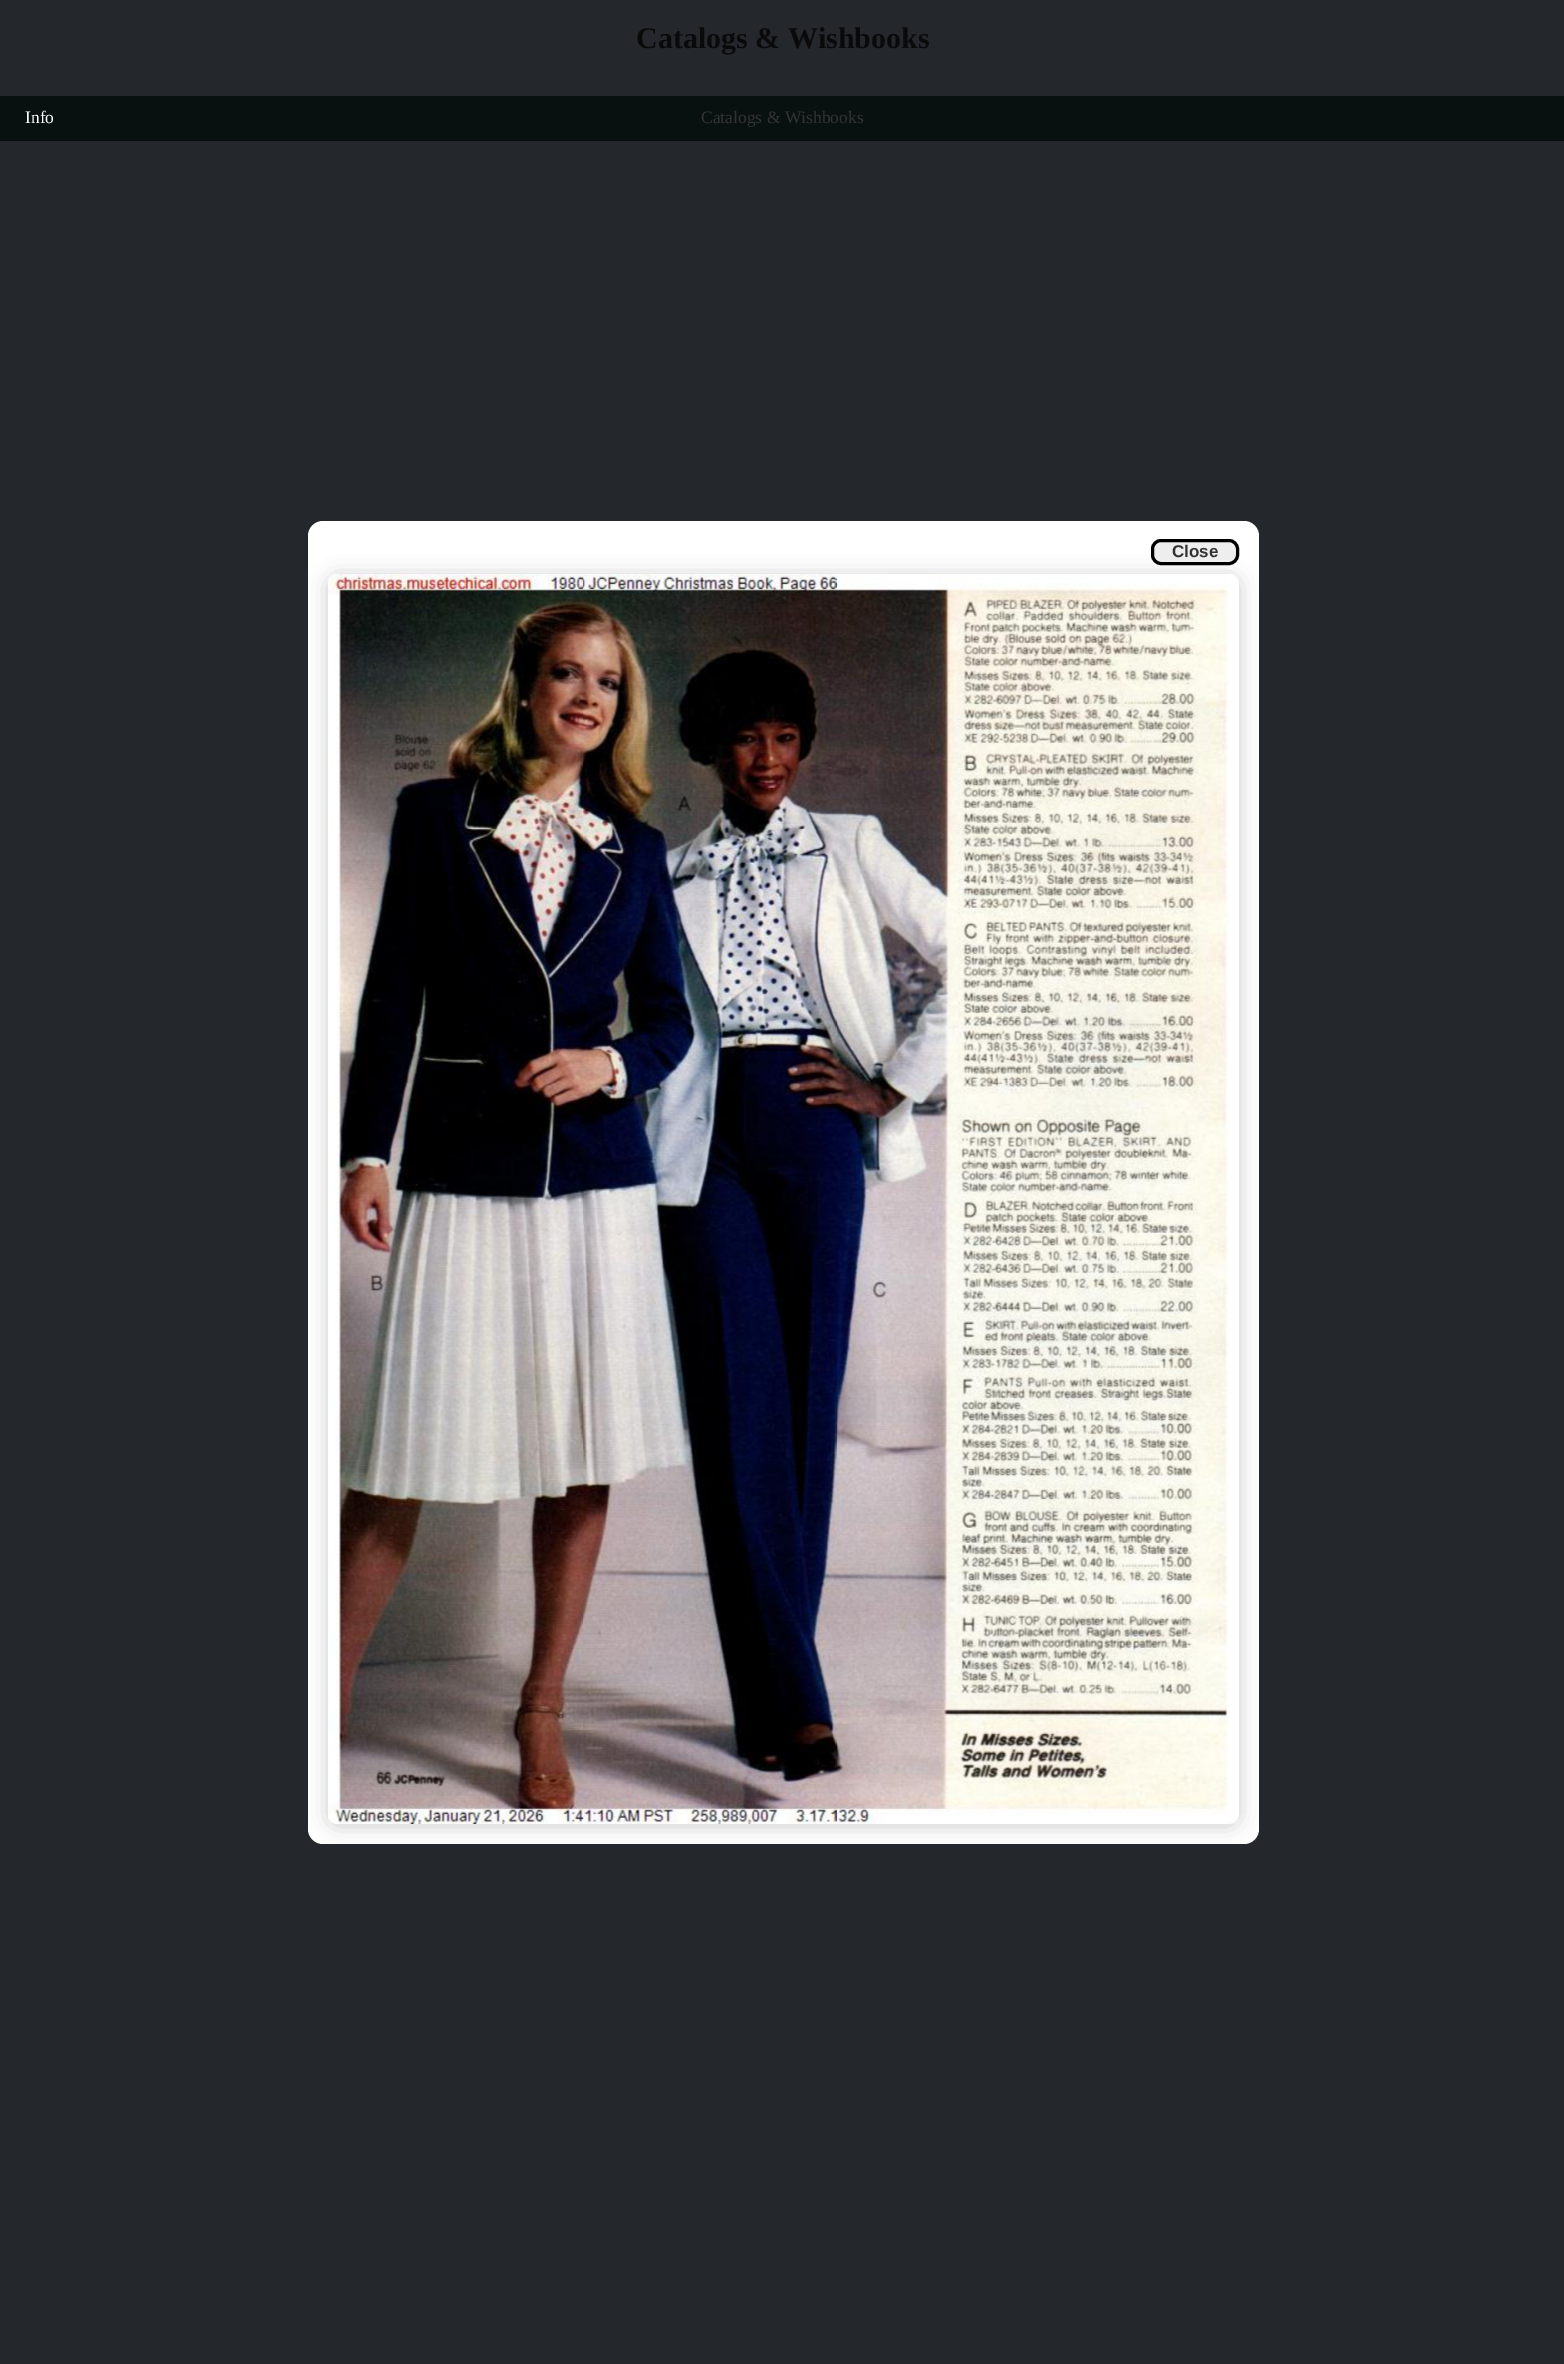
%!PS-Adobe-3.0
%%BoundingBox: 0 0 1564 2364
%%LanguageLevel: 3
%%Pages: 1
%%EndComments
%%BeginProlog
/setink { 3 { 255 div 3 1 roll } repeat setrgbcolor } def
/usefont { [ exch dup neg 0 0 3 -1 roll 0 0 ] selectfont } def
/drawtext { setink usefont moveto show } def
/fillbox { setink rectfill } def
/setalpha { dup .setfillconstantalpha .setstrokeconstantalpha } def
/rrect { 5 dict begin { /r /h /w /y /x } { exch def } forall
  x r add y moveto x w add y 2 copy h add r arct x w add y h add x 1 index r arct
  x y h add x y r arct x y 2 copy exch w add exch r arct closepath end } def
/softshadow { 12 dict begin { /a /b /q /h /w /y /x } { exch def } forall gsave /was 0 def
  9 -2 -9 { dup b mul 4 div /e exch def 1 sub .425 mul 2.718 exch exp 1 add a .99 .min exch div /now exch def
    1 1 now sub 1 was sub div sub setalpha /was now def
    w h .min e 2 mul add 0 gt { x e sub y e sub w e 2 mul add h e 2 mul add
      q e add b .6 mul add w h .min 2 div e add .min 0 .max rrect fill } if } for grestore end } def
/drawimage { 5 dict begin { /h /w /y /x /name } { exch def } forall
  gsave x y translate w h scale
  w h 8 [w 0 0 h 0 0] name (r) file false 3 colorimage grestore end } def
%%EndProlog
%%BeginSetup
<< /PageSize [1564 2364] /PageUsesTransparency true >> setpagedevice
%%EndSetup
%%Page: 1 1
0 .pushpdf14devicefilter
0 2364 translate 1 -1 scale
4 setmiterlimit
0 0 1564 2364 36 40 45 fillbox
0 96 1564 45 9 16 16 fillbox
(Info) 25 123 /LiberationSerif-Regular 17.5 255 255 255 drawtext
(Catalogs & Wishbooks) 701 123 /LiberationSerif-Regular 17.5 51 51 51 drawtext
(Catalogs & Wishbooks) 636 48 /LiberationSerif-Bold 30 10 10 10 drawtext
255 255 255 setink
308 521 951 1323 15 rrect fill
0 0 0 setink
328 576 911 1250 10 10 0.2 softshadow
238 238 238 setink
1152.5 540.5 85 23 8.5 rrect gsave fill grestore
0 0 0 setink
3 setlinewidth
stroke
(Close) 1172 557 /LiberationSans-Bold 17 51 51 51 drawtext
(assets/img1.rgb) 328 574 911 1250 drawimage
.poppdf14devicefilter showpage
%%EOF
